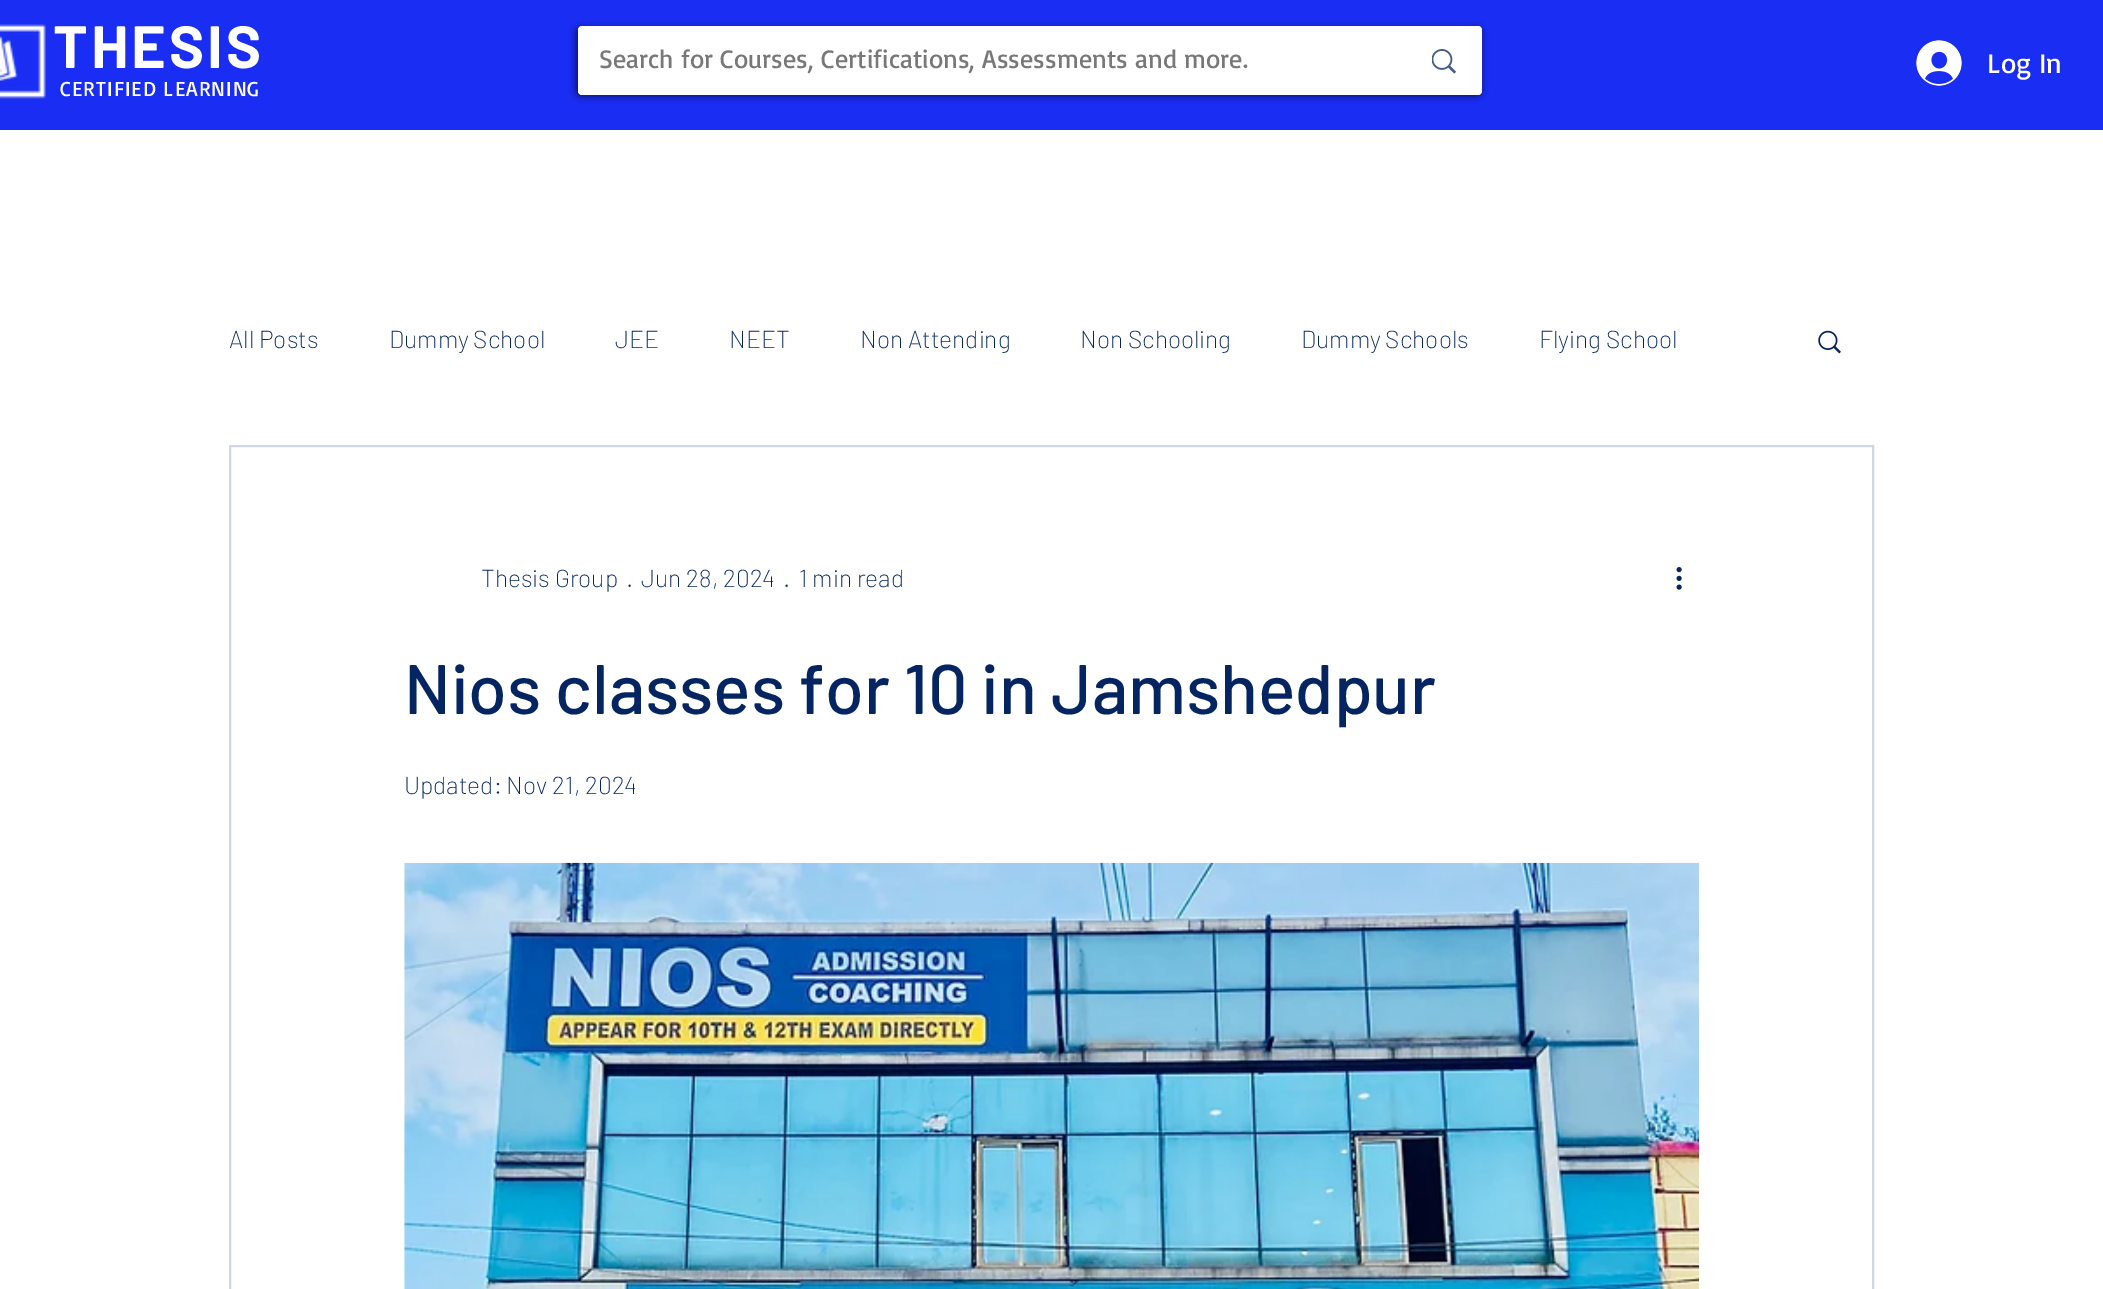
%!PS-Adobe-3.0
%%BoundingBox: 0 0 2103 1289
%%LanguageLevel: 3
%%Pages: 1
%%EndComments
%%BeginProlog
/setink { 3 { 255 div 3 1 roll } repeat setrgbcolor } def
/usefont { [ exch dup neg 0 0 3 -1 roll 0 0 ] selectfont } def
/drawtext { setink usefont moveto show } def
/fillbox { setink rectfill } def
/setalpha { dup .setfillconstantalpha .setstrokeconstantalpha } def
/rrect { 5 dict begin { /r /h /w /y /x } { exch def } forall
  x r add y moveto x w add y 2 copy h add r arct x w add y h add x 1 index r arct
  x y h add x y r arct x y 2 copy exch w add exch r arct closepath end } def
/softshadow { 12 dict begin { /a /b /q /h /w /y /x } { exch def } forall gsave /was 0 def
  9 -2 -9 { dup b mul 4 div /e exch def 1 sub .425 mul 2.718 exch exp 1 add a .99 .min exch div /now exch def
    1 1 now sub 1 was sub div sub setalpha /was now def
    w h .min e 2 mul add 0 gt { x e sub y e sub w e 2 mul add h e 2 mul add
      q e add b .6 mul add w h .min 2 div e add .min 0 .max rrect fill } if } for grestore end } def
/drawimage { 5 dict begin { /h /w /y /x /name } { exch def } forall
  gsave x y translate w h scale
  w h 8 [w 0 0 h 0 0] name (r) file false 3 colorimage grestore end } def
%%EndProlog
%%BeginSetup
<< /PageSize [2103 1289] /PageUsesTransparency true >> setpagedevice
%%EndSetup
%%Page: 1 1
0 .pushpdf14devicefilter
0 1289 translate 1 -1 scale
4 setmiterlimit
0 0 2103 1289 255 255 255 fillbox
0 0 2103 130 26 45 243 fillbox
(assets/img1.rgb) 0 24 46 75 drawimage
/Barlow-Bold 59.5 usefont
255 255 255 setink
53 68 moveto 3 0 (THESIS) ashow
/Basic-Regular 21 usefont
60 96 moveto 1 0 (CERTIFIED LEARNING) ashow
0 0 0 setink
576 28 905 68 4 3.5 0.6 softshadow
255 255 255 setink
578 26 904 69 4 rrect fill
(Search for Courses, Certifications, Assessments and more.) 599 68 /Basic-Regular 26.25 120 120 120 drawtext
(assets/img2.rgb) 1432 49 24 25 drawimage
(assets/img3.rgb) 1916 40 46 46 drawimage
(Log In) 1987 73 /Basic-Regular 28 255 255 255 drawtext
(All Posts) 229 348 /Barlow-ExtraLight 24.5 4 37 98 drawtext
(Dummy School) 389 348 /Barlow-ExtraLight 24.5 4 37 98 drawtext
(JEE) 615 348 /Barlow-ExtraLight 24.5 4 37 98 drawtext
(NEET) 729 348 /Barlow-ExtraLight 24.5 4 37 98 drawtext
(Non Attending) 860 348 /Barlow-ExtraLight 24.5 4 37 98 drawtext
(Non Schooling) 1080 348 /Barlow-ExtraLight 24.5 4 37 98 drawtext
(Dummy Schools) 1301 348 /Barlow-ExtraLight 24.5 4 37 98 drawtext
(Flying School) 1539 348 /Barlow-ExtraLight 24.5 4 37 98 drawtext
(assets/img4.rgb) 1818 330 23 24 drawimage
208 215 226 setink
2 setlinewidth
230 446 1643 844 rectstroke
(Thesis Group) 481 587 /Barlow-ExtraLight 24.5 4 37 98 drawtext
(·) 629 587 /Barlow-ExtraLight 24.5 4 37 98 drawtext
(Jun 28, 2024) 641 587 /Barlow-ExtraLight 24.5 4 37 98 drawtext
(·) 786 587 /Barlow-ExtraLight 24.5 4 37 98 drawtext
(1 min read) 799 587 /Barlow-ExtraLight 24.5 4 37 98 drawtext
(assets/img5.rgb) 1676 567 6 23 drawimage
(Nios classes for 10 in Jamshedpur) 404 714 /Barlow-Medium 70 4 37 98 drawtext
(Updated: Nov 21, 2024) 404 794 /Barlow-ExtraLight 24.5 4 37 98 drawtext
(assets/img6.rgb) 404 862 1296 427 drawimage
.poppdf14devicefilter showpage
%%EOF
